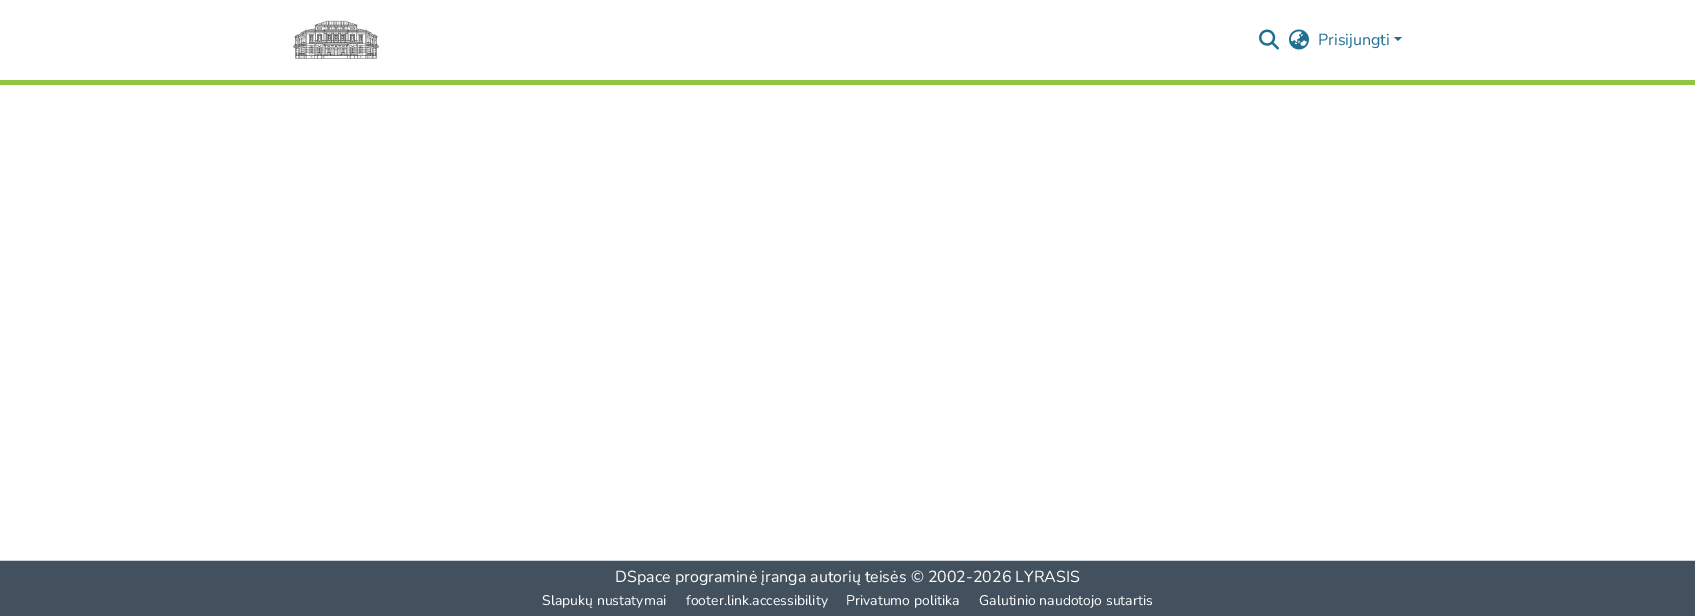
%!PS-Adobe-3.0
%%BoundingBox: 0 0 1695 616
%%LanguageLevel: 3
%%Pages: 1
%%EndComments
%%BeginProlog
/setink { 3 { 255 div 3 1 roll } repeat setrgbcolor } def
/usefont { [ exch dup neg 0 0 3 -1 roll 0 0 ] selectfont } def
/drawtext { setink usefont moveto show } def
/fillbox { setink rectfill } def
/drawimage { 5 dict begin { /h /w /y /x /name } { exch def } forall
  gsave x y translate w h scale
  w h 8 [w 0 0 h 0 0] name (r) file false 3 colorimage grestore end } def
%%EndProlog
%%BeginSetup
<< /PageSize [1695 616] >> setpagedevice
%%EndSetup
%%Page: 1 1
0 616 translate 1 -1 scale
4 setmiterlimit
0 0 1695 616 255 255 255 fillbox
0 80 1695 5 146 198 66 fillbox
(assets/img1.rgb) 293 20 86 39 drawimage
(assets/img2.rgb) 1259 29 20 21 drawimage
(assets/img3.rgb) 1289 29 20 21 drawimage
(Prisijungti) 1318 45 /Nunito-Regular 16 30 111 144 drawtext
1394 37 moveto 1402 37 lineto 1398 41 lineto closepath fill
0 561 1695 55 67 81 95 fillbox
0 560 1695 1 206 212 218 fillbox
(DSpace programinė įranga autorių teisės © 2002-2026 LYRASIS) 615 582 /Nunito-Regular 16 255 255 255 drawtext
(Slapukų nustatymai) 542 605 /Nunito-Regular 14 255 255 255 drawtext
676 589 1 23 73 80 87 fillbox
(footer.link.accessibility) 686 605 /Nunito-Regular 14 255 255 255 drawtext
836 589 1 23 73 80 87 fillbox
(Privatumo politika) 846 605 /Nunito-Regular 14 255 255 255 drawtext
969 589 1 23 73 80 87 fillbox
(Galutinio naudotojo sutartis) 979 605 /Nunito-Regular 14 255 255 255 drawtext
showpage
%%EOF
